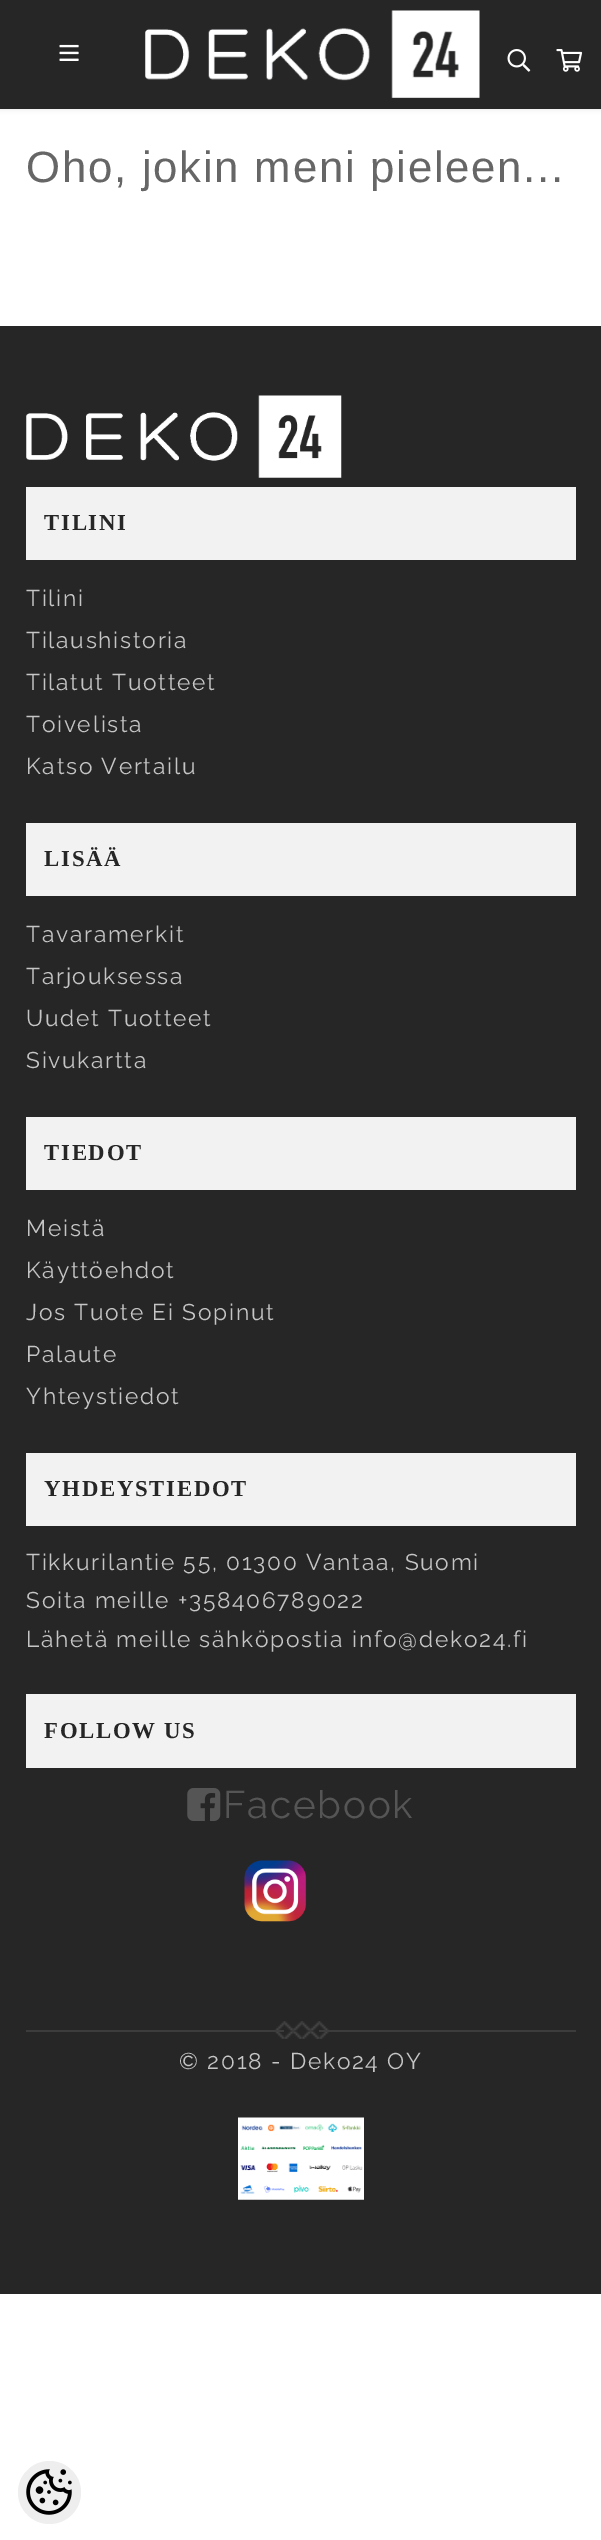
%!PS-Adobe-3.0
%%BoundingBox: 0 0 601 2540
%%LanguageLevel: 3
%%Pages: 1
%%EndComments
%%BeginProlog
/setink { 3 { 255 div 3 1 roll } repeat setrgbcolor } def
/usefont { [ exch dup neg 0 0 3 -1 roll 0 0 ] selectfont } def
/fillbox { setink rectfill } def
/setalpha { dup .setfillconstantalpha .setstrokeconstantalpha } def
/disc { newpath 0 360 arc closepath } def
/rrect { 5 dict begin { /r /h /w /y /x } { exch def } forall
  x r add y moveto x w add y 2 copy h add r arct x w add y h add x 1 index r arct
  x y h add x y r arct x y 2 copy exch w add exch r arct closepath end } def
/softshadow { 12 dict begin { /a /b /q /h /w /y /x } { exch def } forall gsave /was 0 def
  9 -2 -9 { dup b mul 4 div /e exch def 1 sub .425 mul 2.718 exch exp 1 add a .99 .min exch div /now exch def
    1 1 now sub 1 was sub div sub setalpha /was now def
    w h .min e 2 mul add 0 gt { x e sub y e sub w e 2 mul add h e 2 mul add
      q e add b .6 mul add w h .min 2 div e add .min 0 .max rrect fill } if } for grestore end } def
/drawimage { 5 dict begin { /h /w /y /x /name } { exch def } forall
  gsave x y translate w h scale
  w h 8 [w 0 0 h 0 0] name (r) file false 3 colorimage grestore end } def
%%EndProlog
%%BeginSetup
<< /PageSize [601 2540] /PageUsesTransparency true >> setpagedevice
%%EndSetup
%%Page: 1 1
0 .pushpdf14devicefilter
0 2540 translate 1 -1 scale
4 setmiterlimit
0 0 601 2540 255 255 255 fillbox
0 0 0 setink
0 2 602 108 0 2 0.07 softshadow
0 0 601 109 38 38 38 fillbox
(assets/img1.rgb) 59 44 20 17 drawimage
(assets/img2.rgb) 145 10 335 88 drawimage
(assets/img3.rgb) 507 49 24 23 drawimage
(assets/img4.rgb) 556 49 27 23 drawimage
/LiberationSans-Regular 43.75 usefont
102 102 102 setink
26 182 moveto 1.75 0 (Oho, jokin meni pieleen...) ashow
0 326 601 1968 38 38 38 fillbox
(assets/img5.rgb) 26 395 316 83 drawimage
26 487 550 73 242 242 242 fillbox
/LiberationSerif-Bold 22.75 usefont
38 38 38 setink
44 530 moveto 1.75 0 (TILINI) ashow
/Raleway-Regular 22.75 usefont
197 197 197 setink
26 606 moveto 1.75 0 (Tilini) ashow
26 648 moveto 1.75 0 (Tilaushistoria) ashow
26 690 moveto 1.75 0 (Tilatut Tuotteet) ashow
26 732 moveto 1.75 0 (Toivelista) ashow
26 774 moveto 1.75 0 (Katso Vertailu) ashow
26 823 550 73 242 242 242 fillbox
/LiberationSerif-Bold 22.75 usefont
38 38 38 setink
44 866 moveto 1.75 0 (LISÄÄ) ashow
/Raleway-Regular 22.75 usefont
197 197 197 setink
26 942 moveto 1.75 0 (Tavaramerkit) ashow
26 984 moveto 1.75 0 (Tarjouksessa) ashow
26 1026 moveto 1.75 0 (Uudet Tuotteet) ashow
26 1068 moveto 1.75 0 (Sivukartta) ashow
26 1117 550 73 242 242 242 fillbox
/LiberationSerif-Bold 22.75 usefont
38 38 38 setink
44 1160 moveto 1.75 0 (TIEDOT) ashow
/Raleway-Regular 22.75 usefont
197 197 197 setink
26 1236 moveto 1.75 0 (Meistä) ashow
26 1278 moveto 1.75 0 (Käyttöehdot) ashow
26 1320 moveto 1.75 0 (Jos Tuote Ei Sopinut) ashow
26 1362 moveto 1.75 0 (Palaute) ashow
26 1404 moveto 1.75 0 (Yhteystiedot) ashow
26 1453 550 73 242 242 242 fillbox
/LiberationSerif-Bold 22.75 usefont
38 38 38 setink
44 1496 moveto 1.75 0 (YHDEYSTIEDOT) ashow
/Raleway-Regular 22.75 usefont
197 197 197 setink
26 1570 moveto 1.75 0 (Tikkurilantie 55, 01300 Vantaa, Suomi) ashow
26 1608 moveto 1.75 0 (Soita meille +358406789022) ashow
26 1647 moveto 1.75 0 (Lähetä meille sähköpostia info@deko24.fi) ashow
26 1694 550 74 242 242 242 fillbox
/LiberationSerif-Bold 22.75 usefont
38 38 38 setink
44 1738 moveto 1.75 0 (FOLLOW US) ashow
(assets/img6.rgb) 187 1788 34 33 drawimage
/Raleway-Regular 38.5 usefont
85 85 85 setink
223 1818 moveto 1.75 0 (Facebook) ashow
(assets/img7.rgb) 244 1860 63 62 drawimage
(assets/img8.rgb) 274 2021 55 18 drawimage
26 2030 258 2 60 60 60 fillbox
319 2030 257 2 60 60 60 fillbox
/Raleway-Regular 22.75 usefont
197 197 197 setink
179 2069 moveto 1.75 0 (© 2018 - Deko24 OY) ashow
(assets/img9.rgb) 238 2117 126 83 drawimage
238 238 238 setink
49.5 2492.5 31.5 disc fill
(assets/img10.rgb) 26 2469 46 46 drawimage
.poppdf14devicefilter showpage
%%EOF
